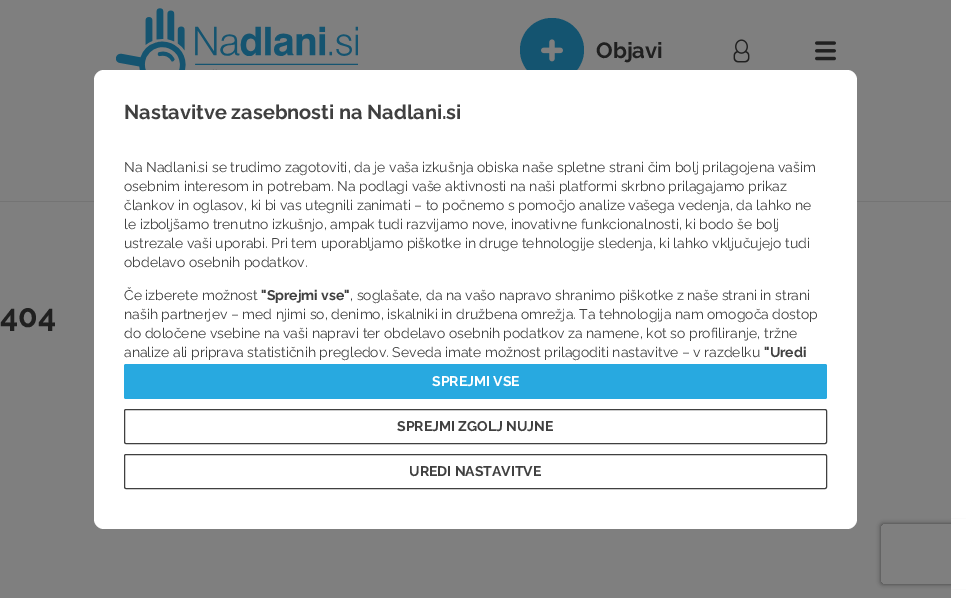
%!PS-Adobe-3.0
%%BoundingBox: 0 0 966 598
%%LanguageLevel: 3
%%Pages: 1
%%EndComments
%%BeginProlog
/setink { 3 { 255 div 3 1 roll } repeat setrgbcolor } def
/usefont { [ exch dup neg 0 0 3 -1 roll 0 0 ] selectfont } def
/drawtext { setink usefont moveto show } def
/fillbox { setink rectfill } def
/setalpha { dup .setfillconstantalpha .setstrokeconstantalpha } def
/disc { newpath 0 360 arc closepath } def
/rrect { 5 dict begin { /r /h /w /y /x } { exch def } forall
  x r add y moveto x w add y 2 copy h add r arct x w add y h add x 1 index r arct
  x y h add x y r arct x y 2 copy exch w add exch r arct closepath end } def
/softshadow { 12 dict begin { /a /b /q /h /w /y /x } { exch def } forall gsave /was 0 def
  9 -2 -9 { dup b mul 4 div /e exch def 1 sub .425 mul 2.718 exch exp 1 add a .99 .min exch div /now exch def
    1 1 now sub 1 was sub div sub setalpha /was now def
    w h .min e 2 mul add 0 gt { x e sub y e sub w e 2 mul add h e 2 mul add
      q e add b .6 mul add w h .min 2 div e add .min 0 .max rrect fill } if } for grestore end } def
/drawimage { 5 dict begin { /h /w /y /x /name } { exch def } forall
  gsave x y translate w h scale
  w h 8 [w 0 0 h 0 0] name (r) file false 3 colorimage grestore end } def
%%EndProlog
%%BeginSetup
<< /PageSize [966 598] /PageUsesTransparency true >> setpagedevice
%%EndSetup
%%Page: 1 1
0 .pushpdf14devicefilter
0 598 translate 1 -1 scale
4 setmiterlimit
0 0 966 598 255 255 255 fillbox
0 201 951 1 232 232 232 fillbox
(assets/img1.rgb) 116 8 242 62 drawimage
40 169 224 setink
552 50 32 disc fill
(assets/img2.rgb) 541 39 22 23 drawimage
(Objavi) 596 58 /Raleway-Bold 22 64 64 64 drawtext
(assets/img3.rgb) 733 39 17 24 drawimage
(assets/img4.rgb) 815 41 21 20 drawimage
(404) 0 327 /Raleway-Bold 32 64 64 64 drawtext
gsave
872 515 moveto 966 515 lineto 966 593 lineto 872 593 lineto closepath 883 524 moveto 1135 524 lineto 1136 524 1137 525 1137 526 curveto 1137 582 lineto 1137 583 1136 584 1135 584 curveto 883 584 lineto 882 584 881 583 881 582 curveto 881 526 lineto 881 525 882 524 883 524 curveto closepath eoclip newpath
128 128 128 setink
881 524 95 60 2 2.5 1 softshadow
grestore
0.5 setalpha
0 0 951 598 0 0 0 fillbox
1 setalpha
255 255 255 setink
94 70 763 459 10 rrect fill
(Nastavitve zasebnosti na Nadlani.si) 124 119 /Raleway-Bold 20 64 64 64 drawtext
(Na Nadlani.si se trudimo zagotoviti, da je vaša izkušnja obiska naše spletne strani čim bolj prilagojena vašim) 124 172 /Raleway-Regular 14 64 64 64 drawtext
(osebnim interesom in potrebam. Na podlagi vaše aktivnosti na naši platformi skrbno prilagajamo prikaz) 124 191 /Raleway-Regular 14 64 64 64 drawtext
(člankov in oglasov, ki bi vas utegnili zanimati – to počnemo s pomočjo analize vašega vedenja, da lahko ne) 124 210 /Raleway-Regular 14 64 64 64 drawtext
(le izboljšamo trenutno izkušnjo, ampak tudi razvijamo nove, inovativne funkcionalnosti, ki bodo še bolj) 124 229 /Raleway-Regular 14 64 64 64 drawtext
(ustrezale vaši uporabi. Pri tem uporabljamo piškotke in druge tehnologije sledenja, ki lahko vključujejo tudi) 124 248 /Raleway-Regular 14 64 64 64 drawtext
(obdelavo osebnih podatkov.) 124 267 /Raleway-Regular 14 64 64 64 drawtext
(Če izberete možnost) 124 300 /Raleway-Regular 14 64 64 64 drawtext
("Sprejmi vse") 261 300 /Raleway-Bold 14 64 64 64 drawtext
(, soglašate, da na vašo napravo shranimo piškotke z naše strani in strani) 350 300 /Raleway-Regular 14 64 64 64 drawtext
(naših partnerjev – med njimi so, denimo, iskalniki in družbena omrežja. Ta tehnologija nam omogoča dostop) 124 319 /Raleway-Regular 14 64 64 64 drawtext
(do določene vsebine na vaši napravi ter obdelavo osebnih podatkov za namene, kot so profiliranje, tržne) 124 338 /Raleway-Regular 14 64 64 64 drawtext
(analize ali priprava statističnih pregledov. Seveda imate možnost prilagoditi nastavitve – v razdelku) 124 357 /Raleway-Regular 14 64 64 64 drawtext
("Uredi) 764 357 /Raleway-Bold 14 64 64 64 drawtext
40 169 224 setink
124 364 703 35 2 rrect fill
(SPREJMI VSE) 432 386 /Raleway-Bold 14 255 255 255 drawtext
64 64 64 setink
124.5 409.5 702 34 1.5 rrect stroke
(SPREJMI ZGOLJ NUJNE) 397 431 /Raleway-Bold 14 64 64 64 drawtext
124.5 454.5 702 34 1.5 rrect stroke
(UREDI NASTAVITVE) 409 476 /Raleway-Bold 14 64 64 64 drawtext
951 519 15 70 255 255 255 fillbox
.poppdf14devicefilter showpage
%%EOF
